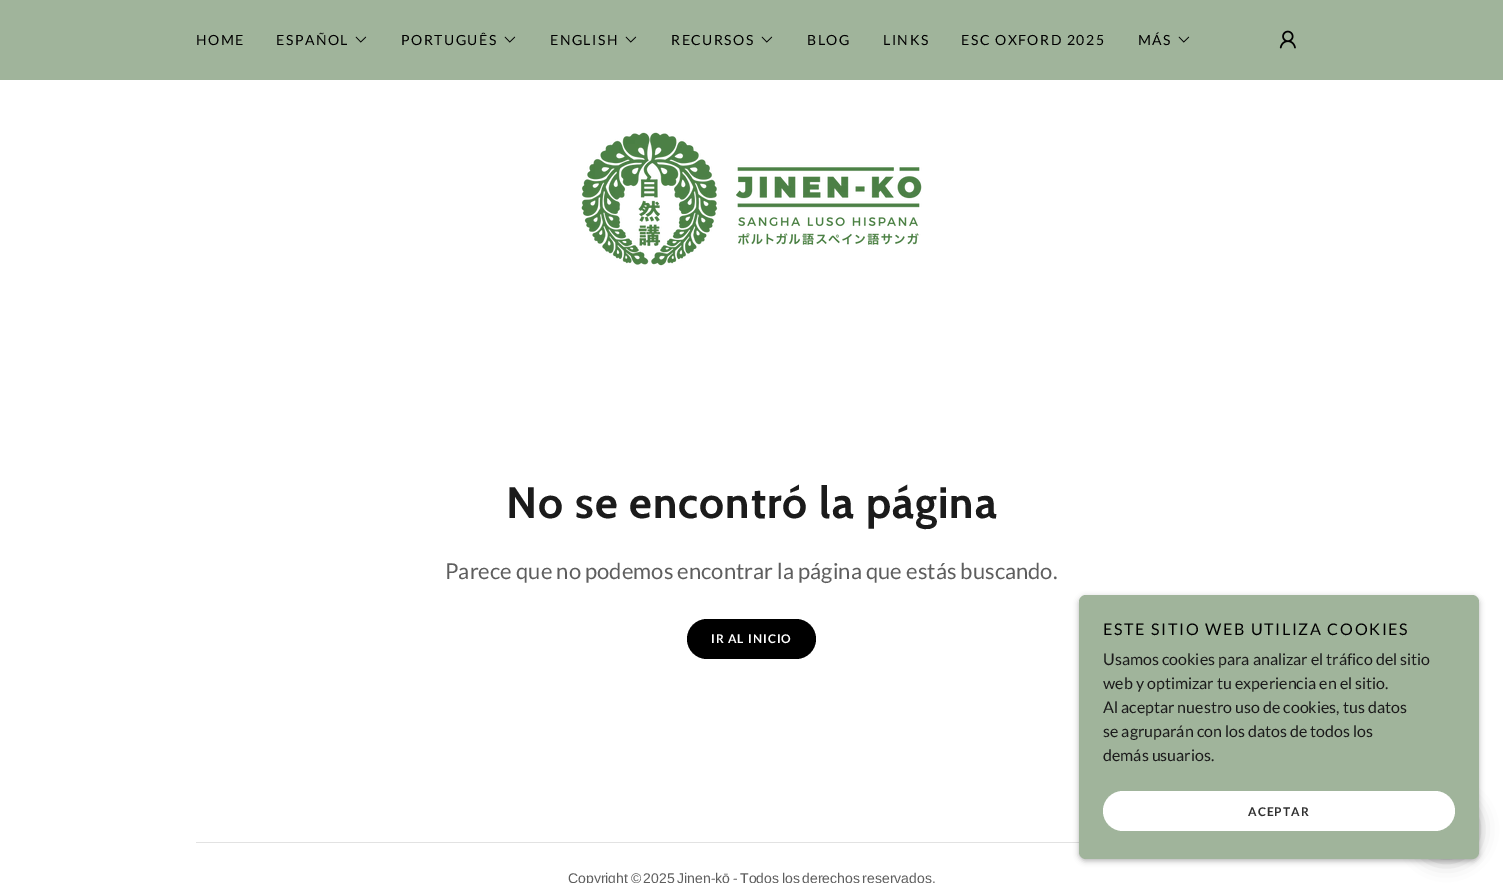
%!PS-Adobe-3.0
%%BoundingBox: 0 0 1503 883
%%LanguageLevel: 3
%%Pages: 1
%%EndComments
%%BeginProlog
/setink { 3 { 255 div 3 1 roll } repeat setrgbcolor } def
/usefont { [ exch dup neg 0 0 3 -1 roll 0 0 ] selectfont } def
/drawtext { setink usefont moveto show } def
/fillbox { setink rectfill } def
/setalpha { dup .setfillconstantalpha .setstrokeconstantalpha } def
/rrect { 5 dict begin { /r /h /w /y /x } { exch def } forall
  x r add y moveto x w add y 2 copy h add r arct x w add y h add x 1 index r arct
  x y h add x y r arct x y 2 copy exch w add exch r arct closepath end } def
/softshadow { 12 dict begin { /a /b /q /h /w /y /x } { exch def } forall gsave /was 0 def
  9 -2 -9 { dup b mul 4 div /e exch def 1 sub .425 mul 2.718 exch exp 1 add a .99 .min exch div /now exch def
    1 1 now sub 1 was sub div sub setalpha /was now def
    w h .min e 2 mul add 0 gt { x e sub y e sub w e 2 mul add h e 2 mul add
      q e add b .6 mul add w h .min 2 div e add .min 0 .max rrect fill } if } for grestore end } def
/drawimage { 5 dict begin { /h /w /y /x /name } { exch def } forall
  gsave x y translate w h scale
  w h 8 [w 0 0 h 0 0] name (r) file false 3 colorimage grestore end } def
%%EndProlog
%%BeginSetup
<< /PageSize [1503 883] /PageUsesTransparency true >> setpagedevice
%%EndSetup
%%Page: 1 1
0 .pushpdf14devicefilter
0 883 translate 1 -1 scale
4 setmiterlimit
0 0 1503 883 255 255 255 fillbox
0 0 1503 80 160 180 155 fillbox
/Lato-Regular 14 usefont
0 0 0 setink
196 45 moveto 1.5 0 (HOME) ashow
276 45 moveto 1.5 0 (ESPAÑOL) ashow
(assets/img1.rgb) 355 36 12 7 drawimage
401 45 moveto 1.5 0 (PORTUGUÊS) ashow
(assets/img1.rgb) 504 36 12 7 drawimage
550 45 moveto 1.5 0 (ENGLISH) ashow
(assets/img1.rgb) 625 36 12 7 drawimage
671 45 moveto 1.5 0 (RECURSOS) ashow
(assets/img1.rgb) 761 36 12 7 drawimage
807 45 moveto 1.5 0 (BLOG) ashow
883 45 moveto 1.5 0 (LINKS) ashow
961 45 moveto 1.5 0 (ESC OXFORD 2025) ashow
1138 45 moveto 1.5 0 (MÁS) ashow
(assets/img1.rgb) 1178 36 12 7 drawimage
(assets/img2.rgb) 1279 30 17 19 drawimage
(assets/img3.rgb) 581 132 341 134 drawimage
/Cabin-Bold 44 usefont
27 27 27 setink
506 518 moveto 1 0 (No se encontró la página) ashow
(Parece que no podemos encontrar la página que estás buscando.) 445 579 /Lato-Regular 22 94 94 94 drawtext
0 0 0 setink
687 619 129 40 20 rrect fill
/Lato-Bold 12 usefont
255 255 255 setink
711 643 moveto 1 0 (IR AL INICIO) ashow
196 842 883 1 226 226 226 fillbox
/LiberationSans-Regular 14 usefont
94 94 94 setink
568 883 moveto -1.25 0 32 (Copyright © 2025 Jinen-kō - Todos los derechos reservados.) widthshow
0 0 0 setink
1079 597 400 264 7 3 0.3 softshadow
1414 797 65 65 32.5 9 0.25 softshadow
160 180 155 setink
1079 595 400 264 7 rrect fill
/Lato-Regular 16 usefont
0 0 0 setink
1103 635 moveto 1.7 0 (ESTE SITIO WEB UTILIZA COOKIES) ashow
(Usamos cookies para analizar el tráfico del sitio) 1103 665 /Lato-Regular 16 27 27 27 drawtext
(web y optimizar tu experiencia en el sitio.) 1103 689 /Lato-Regular 16 27 27 27 drawtext
(Al aceptar nuestro uso de cookies, tus datos) 1103 713 /Lato-Regular 16 27 27 27 drawtext
(se agruparán con los datos de todos los) 1103 737 /Lato-Regular 16 27 27 27 drawtext
(demás usuarios.) 1103 761 /Lato-Regular 16 27 27 27 drawtext
255 255 255 setink
1103 791 352 40 20 rrect fill
/Lato-Bold 12 usefont
48 48 48 setink
1248 816 moveto 1 0 (ACEPTAR) ashow
.poppdf14devicefilter showpage
%%EOF
